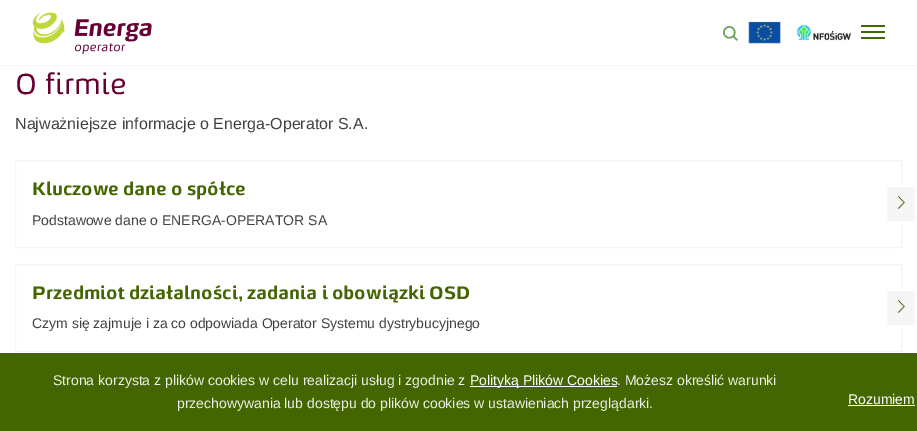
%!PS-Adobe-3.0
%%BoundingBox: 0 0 917 431
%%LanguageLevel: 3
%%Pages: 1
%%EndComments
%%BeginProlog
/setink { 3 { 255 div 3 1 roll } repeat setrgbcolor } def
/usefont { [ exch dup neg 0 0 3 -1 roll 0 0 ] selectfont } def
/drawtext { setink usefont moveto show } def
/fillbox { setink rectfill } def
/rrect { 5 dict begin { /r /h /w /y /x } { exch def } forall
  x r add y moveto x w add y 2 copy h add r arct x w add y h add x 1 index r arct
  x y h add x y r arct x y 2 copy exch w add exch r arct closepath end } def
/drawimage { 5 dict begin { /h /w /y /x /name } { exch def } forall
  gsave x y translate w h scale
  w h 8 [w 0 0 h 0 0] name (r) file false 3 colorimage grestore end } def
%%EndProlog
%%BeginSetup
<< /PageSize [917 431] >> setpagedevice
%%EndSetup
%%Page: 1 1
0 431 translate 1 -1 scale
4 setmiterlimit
0 0 917 431 255 255 255 fillbox
0 65 917 1 245 245 245 fillbox
(assets/img1.rgb) 32 12 120 43 drawimage
(assets/img2.rgb) 723 26 15 15 drawimage
(assets/img3.rgb) 748 21 33 23 drawimage
(assets/img4.rgb) 797 24 54 17 drawimage
68 102 0 setink
861 25 24 2 1 rrect fill
861 31 24 2 1 rrect fill
861 37 24 2 1 rrect fill
(O firmie) 15 94 /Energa-Regular 29 102 0 51 drawtext
(Najważniejsze informacje o Energa-Operator S.A.) 15 129 /LiberationSans-Regular 16 66 66 66 drawtext
245 245 245 setink
15.5 160.5 886 87 rectstroke
(Kluczowe dane o spółce) 32 195 /Energa-Bold 18 68 102 0 drawtext
(Podstawowe dane o ENERGA-OPERATOR SA) 32 225 /LiberationSans-Regular 14 66 66 66 drawtext
245 245 245 setink
886.5 186.5 moveto 915.5 186.5 lineto 915.5 221.5 lineto 886.5 221.5 lineto closepath gsave fill grestore
255 255 255 setink
stroke
(assets/img5.rgb) 898 196 7 13 drawimage
245 245 245 setink
15.5 264.5 886 87 rectstroke
(Przedmiot działalności, zadania i obowiązki OSD) 32 299 /Energa-Bold 18 68 102 0 drawtext
(Czym się zajmuje i za co odpowiada Operator Systemu dystrybucyjnego) 32 328 /LiberationSans-Regular 14 66 66 66 drawtext
245 245 245 setink
886.5 290.5 moveto 915.5 290.5 lineto 915.5 325.5 lineto 886.5 325.5 lineto closepath gsave fill grestore
255 255 255 setink
stroke
(assets/img5.rgb) 898 300 7 13 drawimage
0 353 917 78 68 102 0 fillbox
(Strona korzysta z plików cookies w celu realizacji usług i zgodnie z) 53 385 /LiberationSans-Regular 14 236 240 230 drawtext
470 386 147 1 255 255 255 fillbox
(Polityką Plików Cookies) 470 385 /LiberationSans-Regular 14 255 255 255 drawtext
(. Możesz określić warunki) 617 385 /LiberationSans-Regular 14 236 240 230 drawtext
(przechowywania lub dostępu do plików cookies w ustawieniach przeglądarki.) 177 408 /LiberationSans-Regular 14 236 240 230 drawtext
(Rozumiem) 848 404 /LiberationSans-Regular 14 255 255 255 drawtext
848 405 67 1 255 255 255 fillbox
showpage
%%EOF
